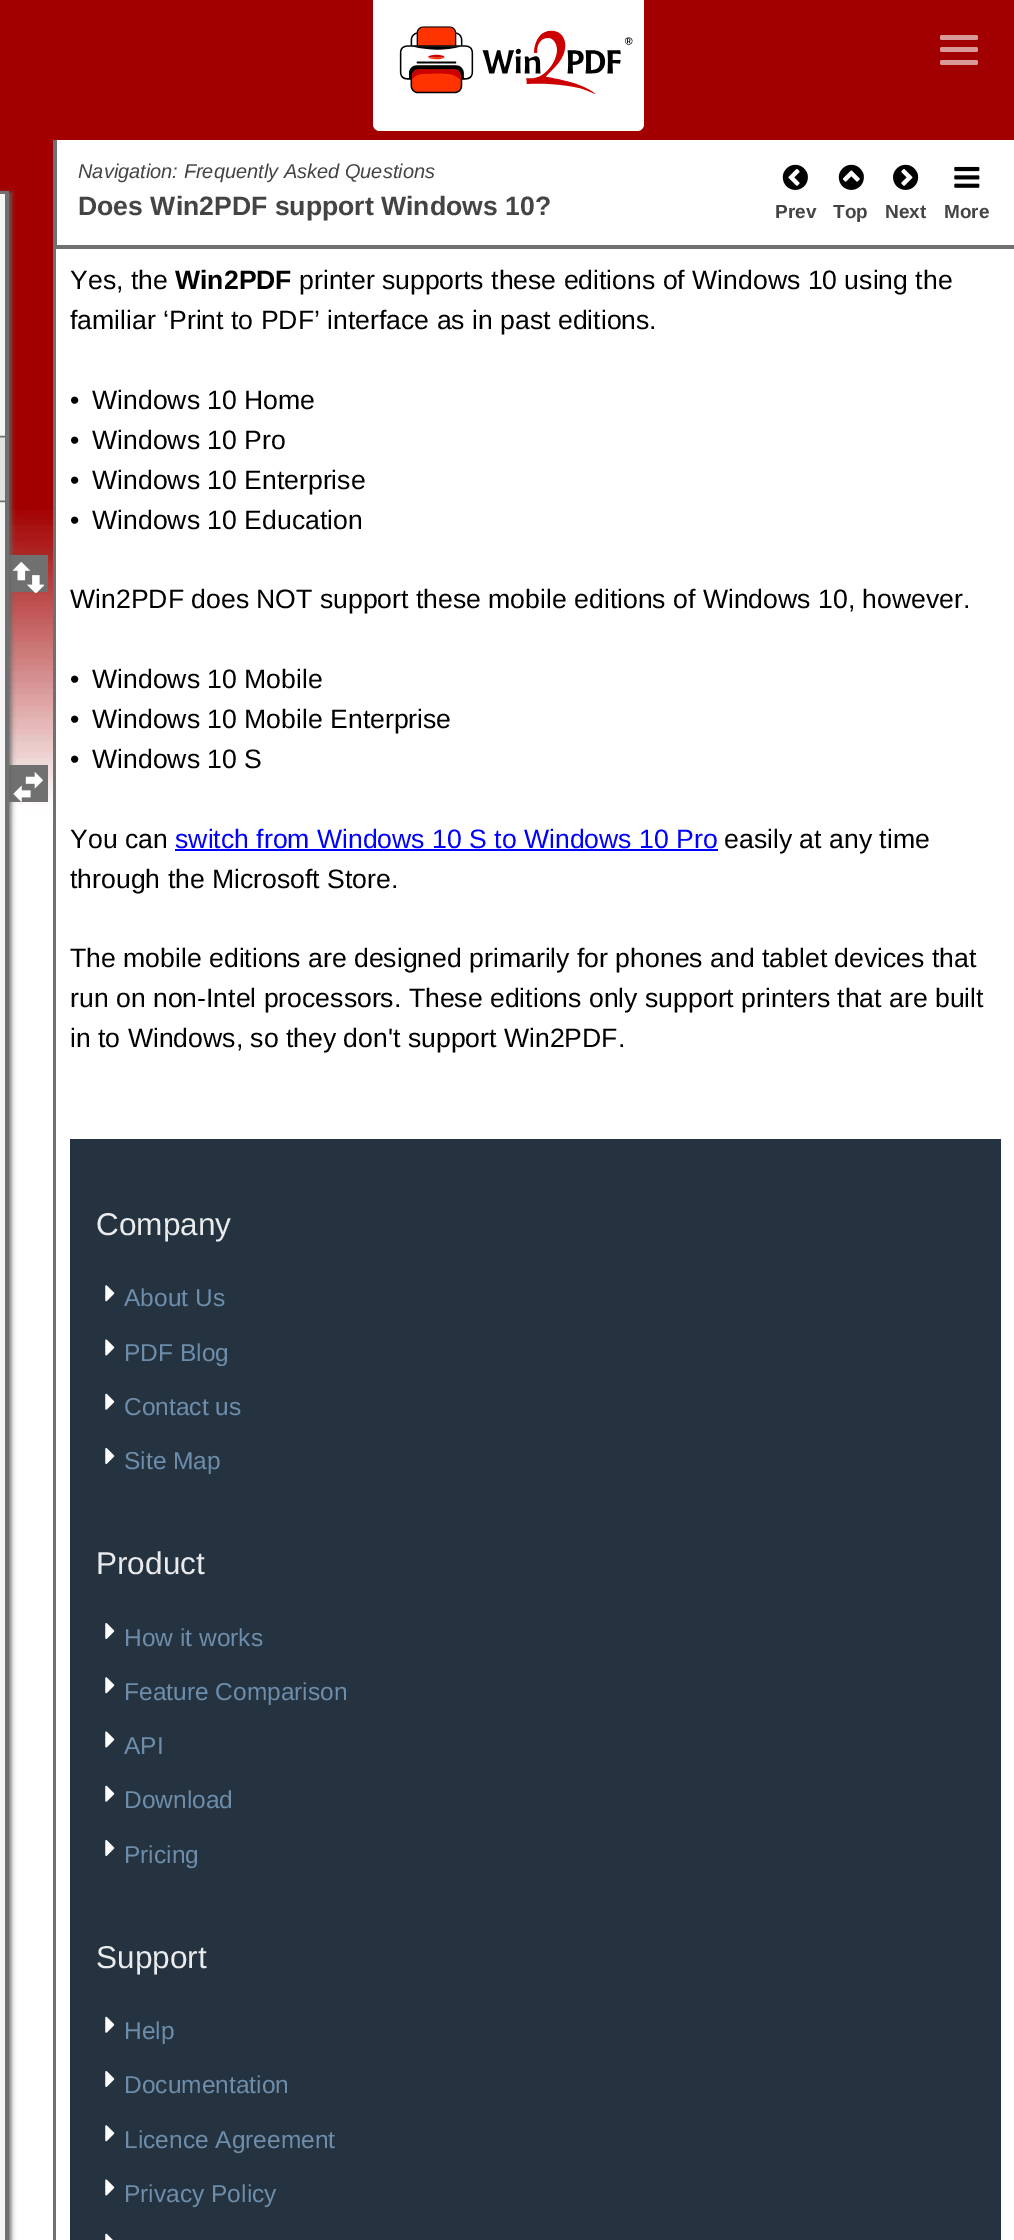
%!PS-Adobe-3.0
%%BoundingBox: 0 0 1014 2240
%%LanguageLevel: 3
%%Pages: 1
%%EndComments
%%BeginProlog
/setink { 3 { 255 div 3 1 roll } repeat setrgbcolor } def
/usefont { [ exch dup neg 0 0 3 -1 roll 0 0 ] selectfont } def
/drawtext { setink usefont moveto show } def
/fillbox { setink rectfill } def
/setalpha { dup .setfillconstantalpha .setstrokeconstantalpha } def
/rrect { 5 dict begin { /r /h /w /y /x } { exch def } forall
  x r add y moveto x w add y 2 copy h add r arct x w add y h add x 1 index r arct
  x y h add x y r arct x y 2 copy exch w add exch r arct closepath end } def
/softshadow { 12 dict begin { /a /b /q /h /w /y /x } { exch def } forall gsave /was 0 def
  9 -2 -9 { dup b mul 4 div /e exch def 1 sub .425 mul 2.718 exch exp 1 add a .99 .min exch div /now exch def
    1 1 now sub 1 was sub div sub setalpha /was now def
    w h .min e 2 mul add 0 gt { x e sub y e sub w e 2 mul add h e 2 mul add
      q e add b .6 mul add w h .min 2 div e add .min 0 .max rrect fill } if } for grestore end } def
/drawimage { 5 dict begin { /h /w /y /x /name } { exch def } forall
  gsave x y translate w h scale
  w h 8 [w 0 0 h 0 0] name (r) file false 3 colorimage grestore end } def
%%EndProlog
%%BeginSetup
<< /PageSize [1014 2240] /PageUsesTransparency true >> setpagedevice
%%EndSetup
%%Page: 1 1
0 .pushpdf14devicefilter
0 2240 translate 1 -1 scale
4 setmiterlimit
0 0 1014 2240 255 255 255 fillbox
0 140 53 370 162 0 0 fillbox
(assets/img1.rgb) 9 510 44 365 drawimage
53 133 4 2107 112 112 112 fillbox
0 0 1014 140 162 0 0 fillbox
255 255 255 setink
373 0 moveto 644 0 lineto 644 124 lineto 644 128 641 131 637 131 curveto 380 131 lineto 376 131 373 128 373 124 curveto closepath fill
(assets/img2.rgb) 399 26 234 69 drawimage
218 153 153 setink
940 35 38 5 2 rrect fill
940 47 38 5 2 rrect fill
940 60 38 5 2 rrect fill
9 557 37 33 112 112 112 fillbox
9 555 38 2 112 112 112 fillbox
46 555 2 37 112 112 112 fillbox
9 590 38 2 112 112 112 fillbox
(assets/img4.rgb) 12 562 32 31 drawimage
9 767 37 33 112 112 112 fillbox
9 765 38 2 112 112 112 fillbox
46 765 2 37 112 112 112 fillbox
9 800 38 2 112 112 112 fillbox
(assets/img5.rgb) 13 772 30 30 drawimage
103 103 103 setink
-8 193 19 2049 0 2.5 1 softshadow
0 191 9 3 112 112 112 fillbox
5 191 4 2049 112 112 112 fillbox
(assets/img3.rgb) 0 194 5 2046 drawimage
(Navigation: Frequently Asked Questions) 78 178 /LiberationSans-Italic 20 68 68 68 drawtext
(Does Win2PDF support Windows 10?) 78 215 /LiberationSans-Bold 26.6 68 68 68 drawtext
(assets/img6.rgb) 782 164 26 26 drawimage
(Prev) 775 218 /LiberationSans-Bold 19 68 68 68 drawtext
(assets/img7.rgb) 838 164 26 26 drawimage
(Top) 833 218 /LiberationSans-Bold 19 68 68 68 drawtext
(assets/img8.rgb) 893 164 26 26 drawimage
(Next) 885 218 /LiberationSans-Bold 19 68 68 68 drawtext
(assets/img9.rgb) 954 166 26 22 drawimage
(More) 944 218 /LiberationSans-Bold 19 68 68 68 drawtext
56 249 1 1991 255 255 255 fillbox
56 245 958 4 112 112 112 fillbox
(Yes, the) 70 289 /LiberationSans-Regular 26.6 0 0 0 drawtext
(Win2PDF) 175 289 /LiberationSans-Bold 26.6 0 0 0 drawtext
(printer supports these editions of Windows 10 using the) 299 289 /LiberationSans-Regular 26.6 0 0 0 drawtext
(familiar ‘Print to PDF’ interface as in past editions.) 70 329 /LiberationSans-Regular 26.6 0 0 0 drawtext
(•) 70 409 /LiberationSans-Regular 26.6 0 0 0 drawtext
(Windows 10 Home) 92 409 /LiberationSans-Regular 26.6 0 0 0 drawtext
(•) 70 449 /LiberationSans-Regular 26.6 0 0 0 drawtext
(Windows 10 Pro) 92 449 /LiberationSans-Regular 26.6 0 0 0 drawtext
(•) 70 489 /LiberationSans-Regular 26.6 0 0 0 drawtext
(Windows 10 Enterprise) 92 489 /LiberationSans-Regular 26.6 0 0 0 drawtext
(•) 70 529 /LiberationSans-Regular 26.6 0 0 0 drawtext
(Windows 10 Education) 92 529 /LiberationSans-Regular 26.6 0 0 0 drawtext
(Win2PDF does NOT support these mobile editions of Windows 10, however.) 70 608 /LiberationSans-Regular 26.6 0 0 0 drawtext
(•) 70 688 /LiberationSans-Regular 26.6 0 0 0 drawtext
(Windows 10 Mobile) 92 688 /LiberationSans-Regular 26.6 0 0 0 drawtext
(•) 70 728 /LiberationSans-Regular 26.6 0 0 0 drawtext
(Windows 10 Mobile Enterprise) 92 728 /LiberationSans-Regular 26.6 0 0 0 drawtext
(•) 70 768 /LiberationSans-Regular 26.6 0 0 0 drawtext
(Windows 10 S) 92 768 /LiberationSans-Regular 26.6 0 0 0 drawtext
(You can) 70 848 /LiberationSans-Regular 26.6 0 0 0 drawtext
(switch from Windows 10 S to Windows 10 Pro) 175 848 /LiberationSans-Regular 26.6 0 0 255 drawtext
175 849 543 2 0 0 255 fillbox
(easily at any time) 724 848 /LiberationSans-Regular 26.6 0 0 0 drawtext
(through the Microsoft Store.) 70 888 /LiberationSans-Regular 26.6 0 0 0 drawtext
(The mobile editions are designed primarily for phones and tablet devices that) 70 967 /LiberationSans-Regular 26.6 0 0 0 drawtext
(run on non-Intel processors. These editions only support printers that are built) 70 1007 /LiberationSans-Regular 26.6 0 0 0 drawtext
(in to Windows, so they don't support Win2PDF.) 70 1047 /LiberationSans-Regular 26.6 0 0 0 drawtext
70 1139 931 1101 37 51 64 fillbox
(Company) 96 1235 /LiberationSans-Regular 31.5 233 235 236 drawtext
(assets/img10.rgb) 105 1285 10 17 drawimage
(About Us) 124 1306 /LiberationSans-Regular 24.5 109 141 171 drawtext
(assets/img11.rgb) 105 1339 10 17 drawimage
(PDF Blog) 124 1361 /LiberationSans-Regular 24.5 109 141 171 drawtext
(assets/img12.rgb) 105 1393 10 17 drawimage
(Contact us) 124 1415 /LiberationSans-Regular 24.5 109 141 171 drawtext
(assets/img13.rgb) 105 1448 10 16 drawimage
(Site Map) 124 1469 /LiberationSans-Regular 24.5 109 141 171 drawtext
(Product) 96 1574 /LiberationSans-Regular 31.5 233 235 236 drawtext
(assets/img13.rgb) 105 1623 10 16 drawimage
(How it works) 124 1646 /LiberationSans-Regular 24.5 109 141 171 drawtext
(assets/img10.rgb) 105 1677 10 17 drawimage
(Feature Comparison) 124 1700 /LiberationSans-Regular 24.5 109 141 171 drawtext
(assets/img11.rgb) 105 1731 10 17 drawimage
(API) 124 1754 /LiberationSans-Regular 24.5 109 141 171 drawtext
(assets/img12.rgb) 105 1785 10 17 drawimage
(Download) 124 1808 /LiberationSans-Regular 24.5 109 141 171 drawtext
(assets/img13.rgb) 105 1840 10 16 drawimage
(Pricing) 124 1863 /LiberationSans-Regular 24.5 109 141 171 drawtext
(Support) 96 1968 /LiberationSans-Regular 31.5 233 235 236 drawtext
(assets/img12.rgb) 105 2016 10 17 drawimage
(Help) 124 2039 /LiberationSans-Regular 24.5 109 141 171 drawtext
(assets/img13.rgb) 105 2071 10 16 drawimage
(Documentation) 124 2093 /LiberationSans-Regular 24.5 109 141 171 drawtext
(assets/img10.rgb) 105 2125 10 17 drawimage
(Licence Agreement) 124 2148 /LiberationSans-Regular 24.5 109 141 171 drawtext
(assets/img11.rgb) 105 2179 10 17 drawimage
(Privacy Policy) 124 2202 /LiberationSans-Regular 24.5 109 141 171 drawtext
(assets/img14.rgb) 105 2233 8 7 drawimage
.poppdf14devicefilter showpage
%%EOF
